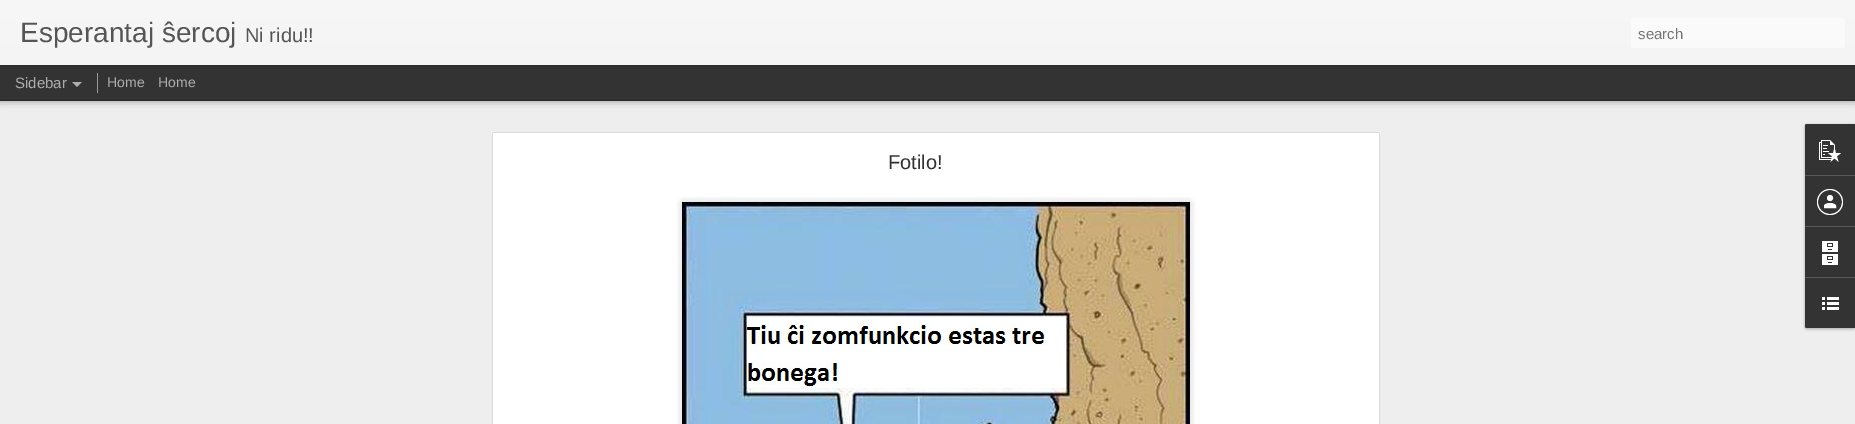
%!PS-Adobe-3.0
%%BoundingBox: 0 0 1855 424
%%LanguageLevel: 3
%%Pages: 1
%%EndComments
%%BeginProlog
/setink { 3 { 255 div 3 1 roll } repeat setrgbcolor } def
/usefont { [ exch dup neg 0 0 3 -1 roll 0 0 ] selectfont } def
/drawtext { setink usefont moveto show } def
/fillbox { setink rectfill } def
/setalpha { dup .setfillconstantalpha .setstrokeconstantalpha } def
/rrect { 5 dict begin { /r /h /w /y /x } { exch def } forall
  x r add y moveto x w add y 2 copy h add r arct x w add y h add x 1 index r arct
  x y h add x y r arct x y 2 copy exch w add exch r arct closepath end } def
/softshadow { 12 dict begin { /a /b /q /h /w /y /x } { exch def } forall gsave /was 0 def
  9 -2 -9 { dup b mul 4 div /e exch def 1 sub .425 mul 2.718 exch exp 1 add a .99 .min exch div /now exch def
    1 1 now sub 1 was sub div sub setalpha /was now def
    w h .min e 2 mul add 0 gt { x e sub y e sub w e 2 mul add h e 2 mul add
      q e add b .6 mul add w h .min 2 div e add .min 0 .max rrect fill } if } for grestore end } def
/drawimage { 5 dict begin { /h /w /y /x /name } { exch def } forall
  gsave x y translate w h scale
  w h 8 [w 0 0 h 0 0] name (r) file false 3 colorimage grestore end } def
%%EndProlog
%%BeginSetup
<< /PageSize [1855 424] /PageUsesTransparency true >> setpagedevice
%%EndSetup
%%Page: 1 1
0 .pushpdf14devicefilter
0 424 translate 1 -1 scale
4 setmiterlimit
0 0 1855 424 51 51 51 fillbox
0 101 1855 323 238 238 238 fillbox
0 0 0 setink
0 65 1855 35 0 4 0.5 softshadow
0 65 1855 35 51 51 51 fillbox
97 73 1 20 153 153 153 fillbox
0 0 0 setink
0 0 1855 65 0 2.5 0.3 softshadow
gsave 0 0 moveto 1855 0 lineto 1855 65 lineto 0 65 lineto closepath clip newpath
<< /ShadingType 2 /ColorSpace /DeviceRGB /Coords [0 0 0 65] /Extend [true true] /Function << /FunctionType 2 /Domain [0 1] /C0 [0.969 0.969 0.969] /C1 [0.957 0.957 0.957] /N 1 >> >> shfill grestore
(Esperantaj ŝercoj) 20 42 /LiberationSans-Regular 28 85 85 85 drawtext
(Ni ridu!!) 245 42 /LiberationSans-Regular 20 85 85 85 drawtext
250 250 250 setink
1631 18 214 30 3 rrect fill
(search) 1638 39 /LiberationSans-Regular 15 117 117 117 drawtext
(Sidebar) 15 88 /LiberationSans-Regular 15 173 173 173 drawtext
72 82 moveto 82 82 lineto 77 87 lineto closepath fill
(Home) 107 87 /LiberationSans-Regular 14 173 173 173 drawtext
(Home) 158 87 /LiberationSans-Regular 14 173 173 173 drawtext
491 131 890 293 255 255 255 fillbox
(assets/img1.rgb) 491 131 890 293 drawimage
(Fotilo!) 888 169 /LiberationSans-Regular 20 51 51 51 drawtext
(assets/img2.rgb) 677 197 518 227 drawimage
0 0 0 setink
1805 125 50 204 2 1.5 0.3 softshadow
51 51 51 setink
1807 124 moveto 1855 124 lineto 1855 328 lineto 1807 328 lineto 1806 328 1805 327 1805 326 curveto 1805 126 lineto 1805 125 1806 124 1807 124 curveto closepath fill
1807 124 moveto 1855 124 lineto 1855 175 lineto 1805 175 lineto 1805 126 lineto 1805 125 1806 124 1807 124 curveto closepath fill
(assets/img3.rgb) 1819 140 22 22 drawimage
1805 175 50 1 88 88 88 fillbox
(assets/img4.rgb) 1817 189 26 26 drawimage
1805 226 50 1 88 88 88 fillbox
(assets/img5.rgb) 1822 241 16 24 drawimage
51 51 51 setink
1805 277 moveto 1855 277 lineto 1855 328 lineto 1807 328 lineto 1806 328 1805 327 1805 326 curveto closepath fill
1805 277 50 1 88 88 88 fillbox
(assets/img6.rgb) 1822 297 17 13 drawimage
.poppdf14devicefilter showpage
%%EOF
